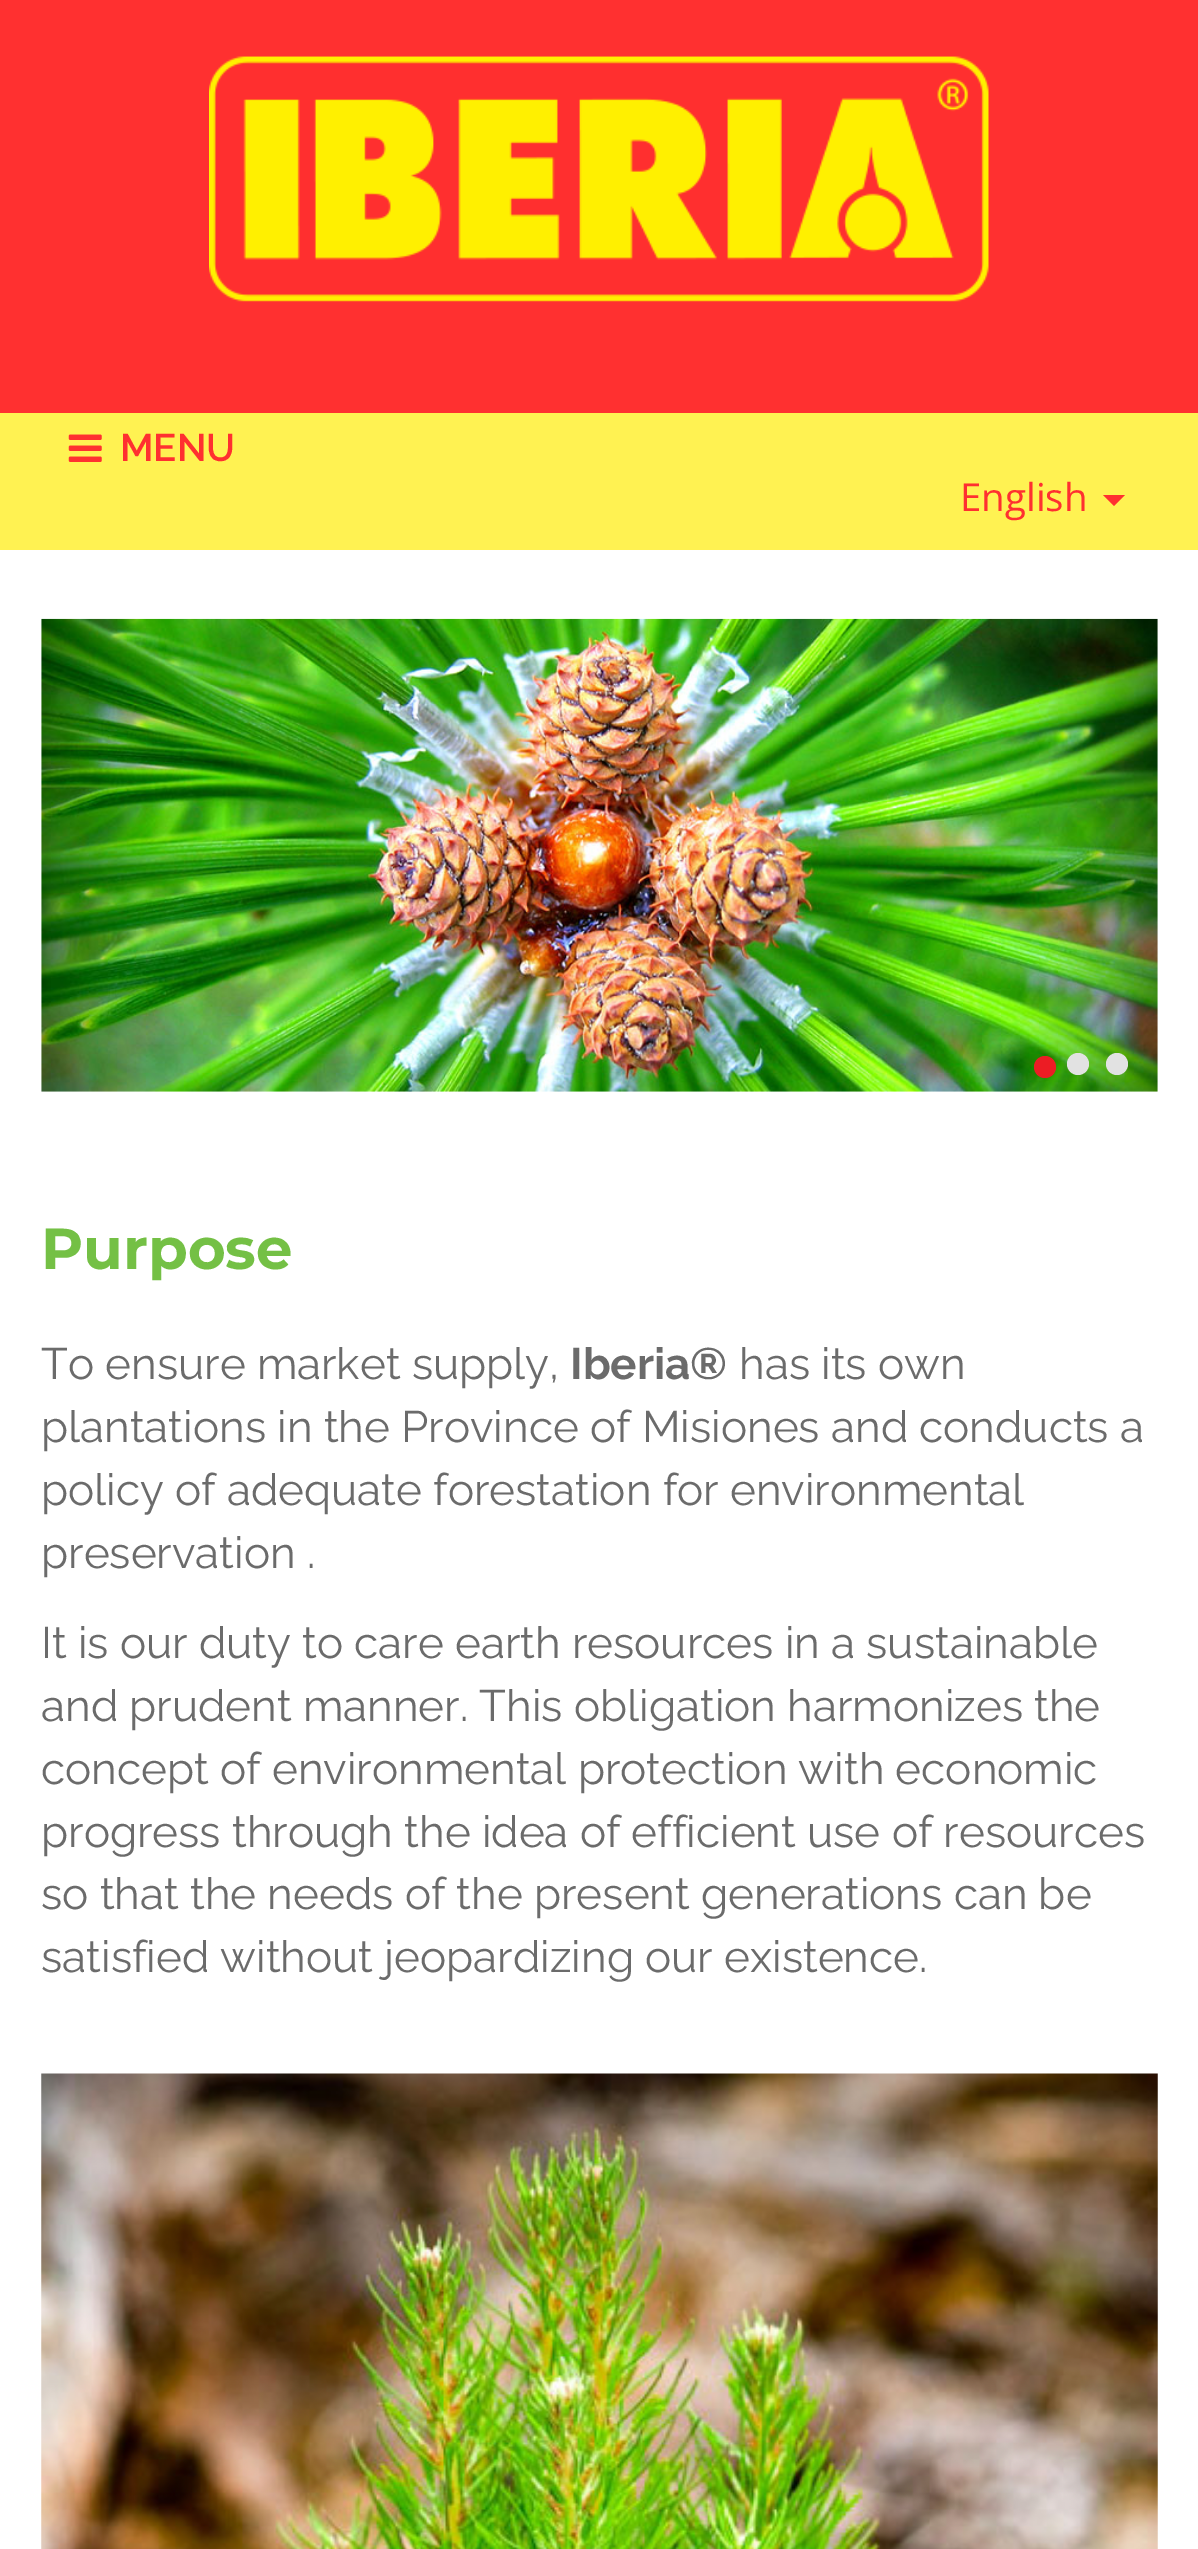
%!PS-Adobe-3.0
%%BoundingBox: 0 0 1198 2549
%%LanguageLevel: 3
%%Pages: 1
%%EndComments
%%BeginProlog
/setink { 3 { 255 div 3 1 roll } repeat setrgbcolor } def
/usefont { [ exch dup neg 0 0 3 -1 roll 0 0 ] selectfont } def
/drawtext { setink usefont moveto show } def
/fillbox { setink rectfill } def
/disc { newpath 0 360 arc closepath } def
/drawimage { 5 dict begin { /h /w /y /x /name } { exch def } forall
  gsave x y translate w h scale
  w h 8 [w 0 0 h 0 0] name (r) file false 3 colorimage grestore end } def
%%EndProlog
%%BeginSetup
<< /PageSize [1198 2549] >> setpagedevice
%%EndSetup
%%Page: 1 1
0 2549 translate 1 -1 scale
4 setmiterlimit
0 0 1198 2549 255 255 255 fillbox
0 413 1198 137 255 242 82 fillbox
0 0 1198 413 255 48 48 fillbox
(assets/img1.rgb) 209 56 780 246 drawimage
(assets/img2.rgb) 68 434 34 28 drawimage
(MENU) 120 461 /Raleway-SemiBold 38.5 255 48 48 drawtext
(English) 960 511 /OpenSans-Regular 38.5 255 48 48 drawtext
1103 495 moveto 1125 495 lineto 1114 506 lineto closepath fill
(assets/img3.rgb) 41 618 1117 474 drawimage
236 28 36 setink
1045 1067 11 disc fill
226 226 226 setink
1078 1064 11 disc fill
1117 1064 11 disc fill
(Purpose) 41 1269 /Montserrat-Bold 57.75 116 192 69 drawtext
(To ensure market supply,) 41 1379 /Raleway-Regular 44 107 107 107 drawtext
(Iberia®) 570 1379 /Raleway-Bold 44 107 107 107 drawtext
(has its own) 739 1379 /Raleway-Regular 44 107 107 107 drawtext
(plantations in the Province of Misiones and conducts a) 41 1442 /Raleway-Regular 44 107 107 107 drawtext
(policy of adequate forestation for environmental) 41 1505 /Raleway-Regular 44 107 107 107 drawtext
(preservation .) 41 1568 /Raleway-Regular 44 107 107 107 drawtext
(It is our duty to care earth resources in a sustainable) 41 1658 /Raleway-Regular 44 107 107 107 drawtext
(and prudent manner. This obligation harmonizes the) 41 1721 /Raleway-Regular 44 107 107 107 drawtext
(concept of environmental protection with economic) 41 1784 /Raleway-Regular 44 107 107 107 drawtext
(progress through the idea of efficient use of resources) 41 1847 /Raleway-Regular 44 107 107 107 drawtext
(so that the needs of the present generations can be) 41 1909 /Raleway-Regular 44 107 107 107 drawtext
(satisfied without jeopardizing our existence.) 41 1972 /Raleway-Regular 44 107 107 107 drawtext
(assets/img4.rgb) 41 2073 1117 476 drawimage
showpage
%%EOF
